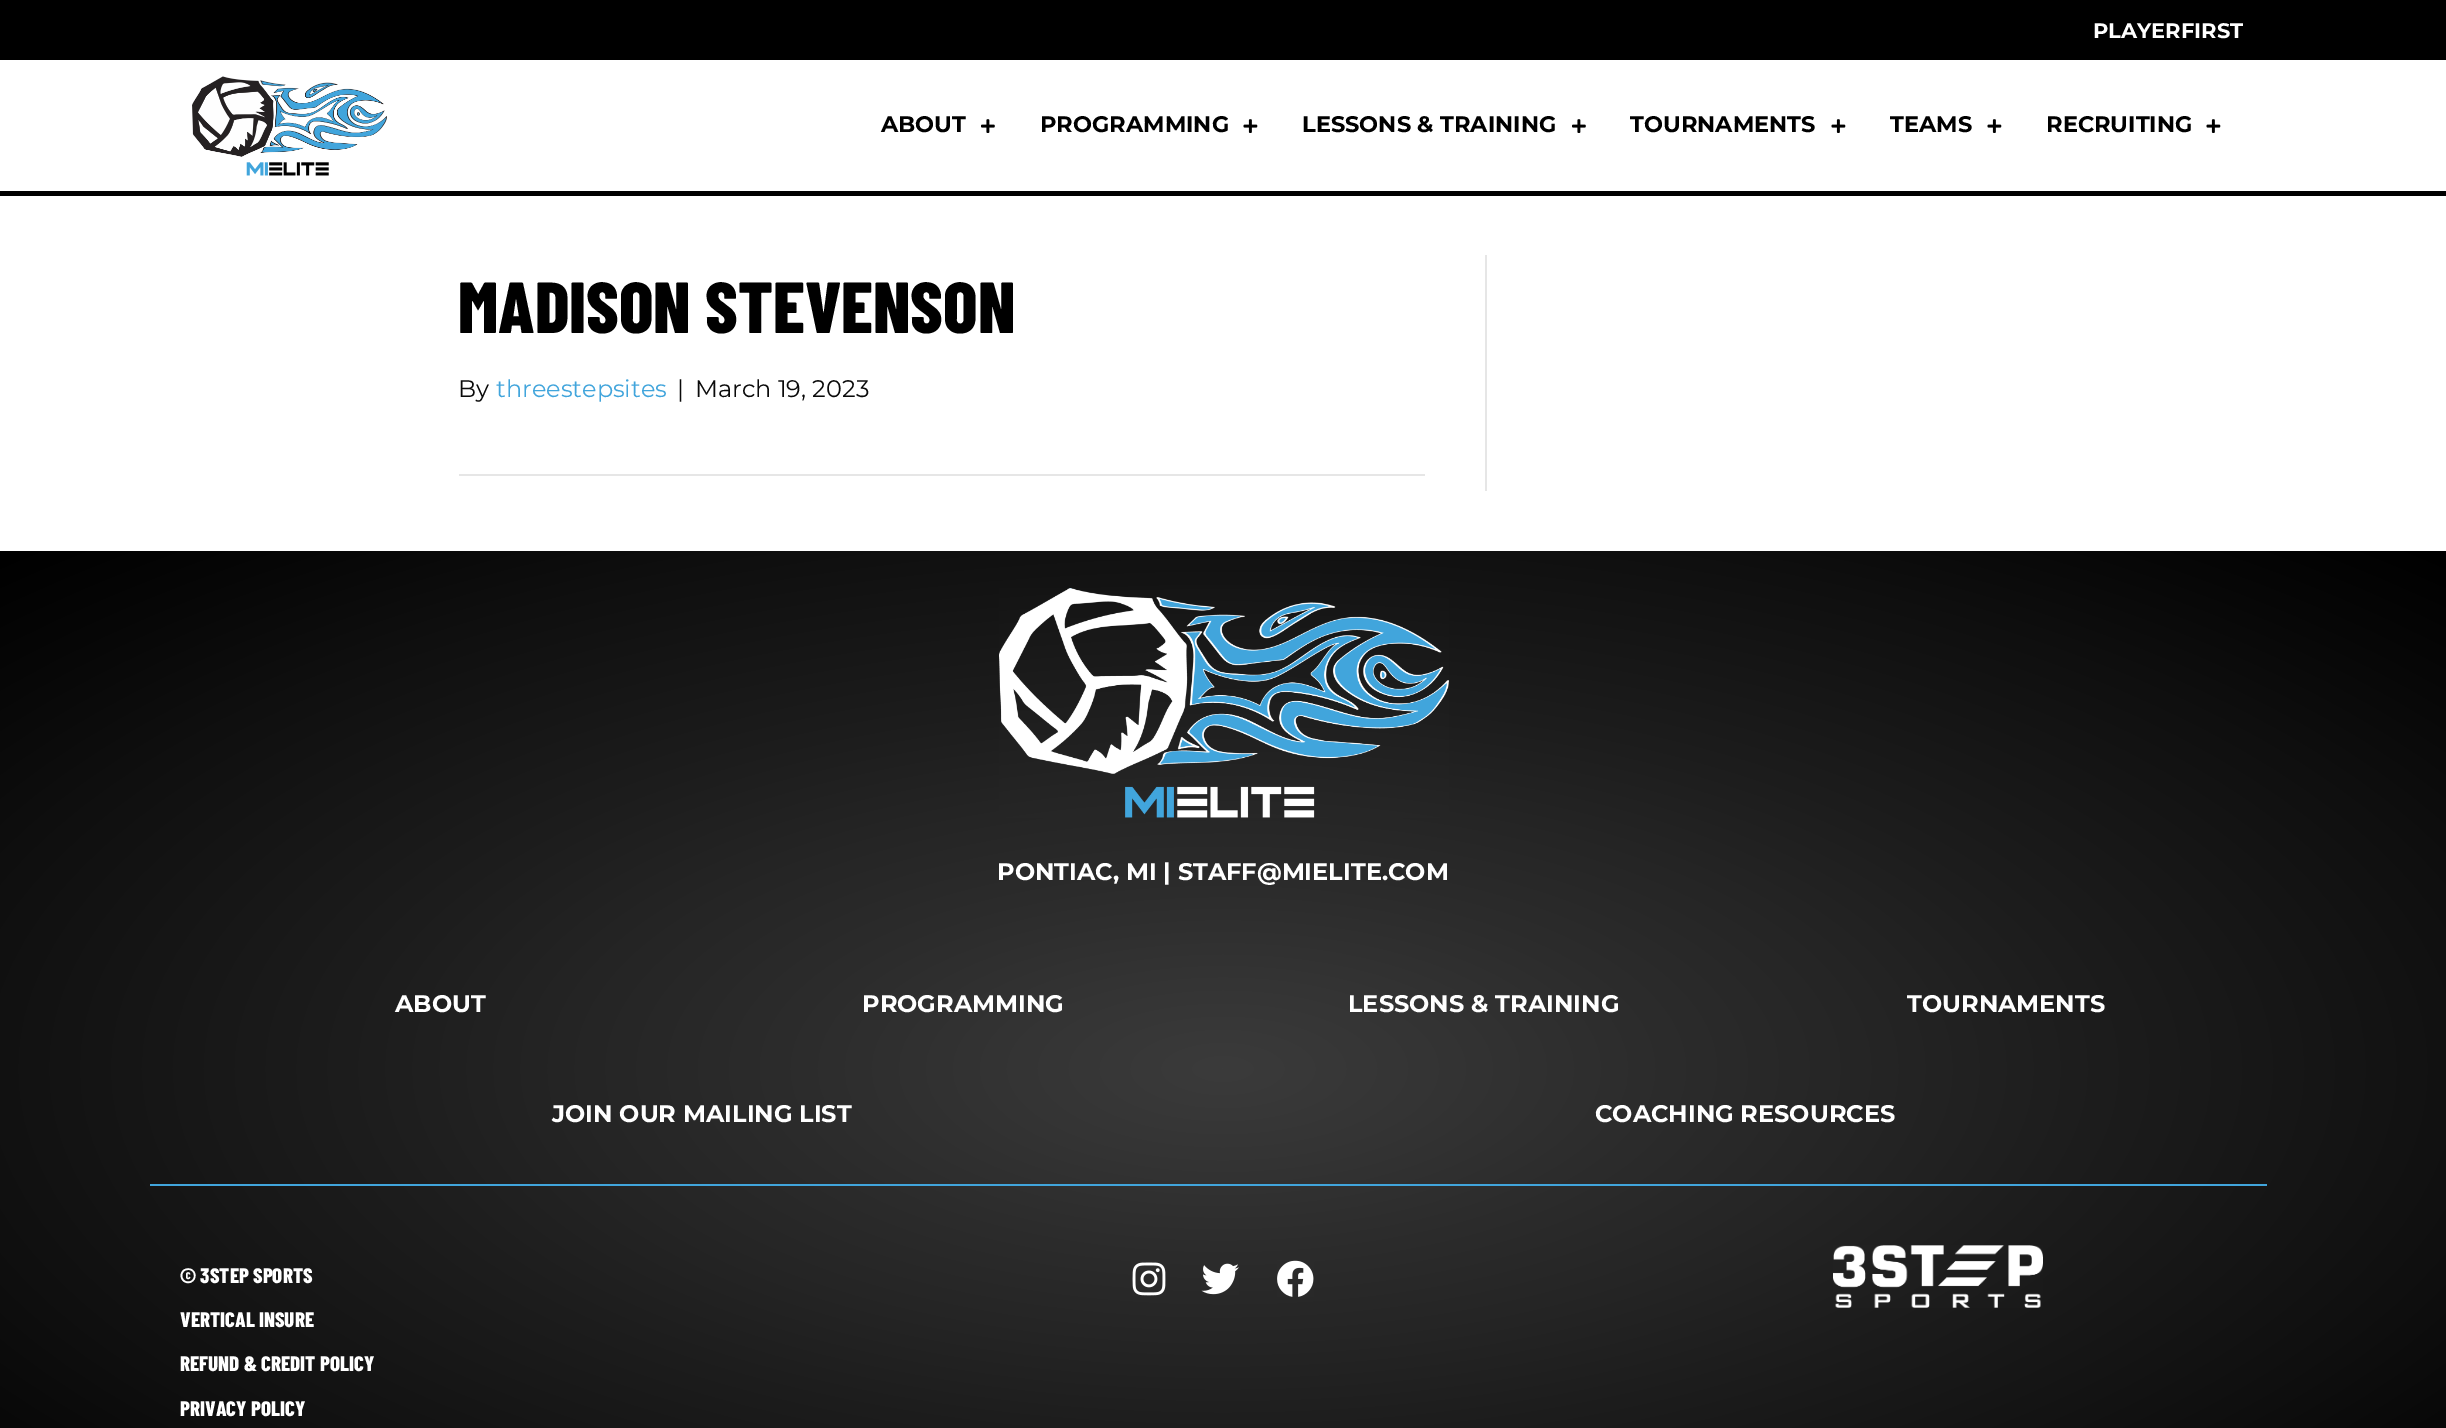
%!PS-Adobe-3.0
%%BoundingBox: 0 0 2446 1428
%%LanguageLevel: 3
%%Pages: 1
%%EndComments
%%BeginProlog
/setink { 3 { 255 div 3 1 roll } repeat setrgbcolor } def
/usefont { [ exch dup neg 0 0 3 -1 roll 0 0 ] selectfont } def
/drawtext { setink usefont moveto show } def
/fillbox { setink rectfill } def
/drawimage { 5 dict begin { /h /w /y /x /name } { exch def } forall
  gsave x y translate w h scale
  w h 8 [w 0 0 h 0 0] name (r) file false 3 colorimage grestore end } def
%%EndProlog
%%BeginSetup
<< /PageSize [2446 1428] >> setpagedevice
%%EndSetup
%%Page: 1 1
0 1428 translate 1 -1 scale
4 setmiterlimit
0 0 2446 1428 255 255 255 fillbox
0 0 2446 60 0 0 0 fillbox
(PLAYERFIRST) 2093 38 /Montserrat-Bold 21 255 255 255 drawtext
0 191 2446 5 0 0 0 fillbox
(assets/img1.rgb) 192 76 195 100 drawimage
(ABOUT) 881 132 /Montserrat-Bold 22.5 0 0 0 drawtext
(assets/img2.rgb) 981 119 14 14 drawimage
(PROGRAMMING) 1040 132 /Montserrat-Bold 22.5 0 0 0 drawtext
(assets/img3.rgb) 1243 119 15 14 drawimage
(LESSONS & TRAINING) 1302 132 /Montserrat-Bold 22.5 0 0 0 drawtext
(assets/img2.rgb) 1572 119 14 14 drawimage
(TOURNAMENTS) 1630 132 /Montserrat-Bold 22.5 0 0 0 drawtext
(assets/img3.rgb) 1831 119 15 14 drawimage
(TEAMS) 1890 132 /Montserrat-Bold 22.5 0 0 0 drawtext
(assets/img3.rgb) 1987 119 15 14 drawimage
(RECRUITING) 2046 132 /Montserrat-Bold 22.5 0 0 0 drawtext
(assets/img3.rgb) 2206 119 15 14 drawimage
1485 255 2 236 230 230 230 fillbox
(MADISON STEVENSON) 458 333 /BarlowCondensed-ExtraBold 72 0 0 0 drawtext
(By) 458 397 /Montserrat-Regular 24 10 10 10 drawtext
(threestepsites) 496 397 /Montserrat-Regular 24 65 165 220 drawtext
(|) 677 397 /Montserrat-Regular 24 10 10 10 drawtext
(March 19, 2023) 695 397 /Montserrat-Regular 24 10 10 10 drawtext
459 474 966 2 230 230 230 fillbox
gsave 0 551 moveto 2446 551 lineto 2446 1428 lineto 0 1428 lineto closepath clip newpath 1223 1069 translate 1730 733 scale
<< /ShadingType 3 /ColorSpace /DeviceRGB /Coords [0 0 0 0 0 1] /Extend [true true] /Function << /FunctionType 2 /Domain [0 1] /C0 [0.231 0.231 0.231] /C1 [0 0 0] /N 1 >> >> shfill grestore
(assets/img4.rgb) 999 588 450 230 drawimage
(PONTIAC, MI | STAFF@MIELITE.COM) 997 880 /Montserrat-Bold 24 255 255 255 drawtext
(ABOUT) 395 1012 /Montserrat-Bold 24 255 255 255 drawtext
(PROGRAMMING) 862 1012 /Montserrat-Bold 24 255 255 255 drawtext
(LESSONS & TRAINING) 1348 1012 /Montserrat-Bold 24 255 255 255 drawtext
(TOURNAMENTS) 1907 1012 /Montserrat-Bold 24 255 255 255 drawtext
(JOIN OUR MAILING LIST) 552 1122 /Montserrat-Bold 24 255 255 255 drawtext
(COACHING RESOURCES) 1595 1122 /Montserrat-Bold 24 255 255 255 drawtext
150 1184 2117 2 65 165 220 fillbox
(© 3STEP SPORTS) 180 1283 /BarlowCondensed-ExtraBold 21 255 255 255 drawtext
(VERTICAL INSURE) 180 1327 /BarlowCondensed-ExtraBold 21 255 255 255 drawtext
(REFUND & CREDIT POLICY) 180 1371 /BarlowCondensed-ExtraBold 21 255 255 255 drawtext
(PRIVACY POLICY) 180 1416 /BarlowCondensed-ExtraBold 21 255 255 255 drawtext
(assets/img5.rgb) 1132 1262 34 34 drawimage
(assets/img6.rgb) 1201 1263 38 32 drawimage
(assets/img7.rgb) 1277 1260 37 37 drawimage
(assets/img8.rgb) 1833 1245 210 63 drawimage
showpage
%%EOF
